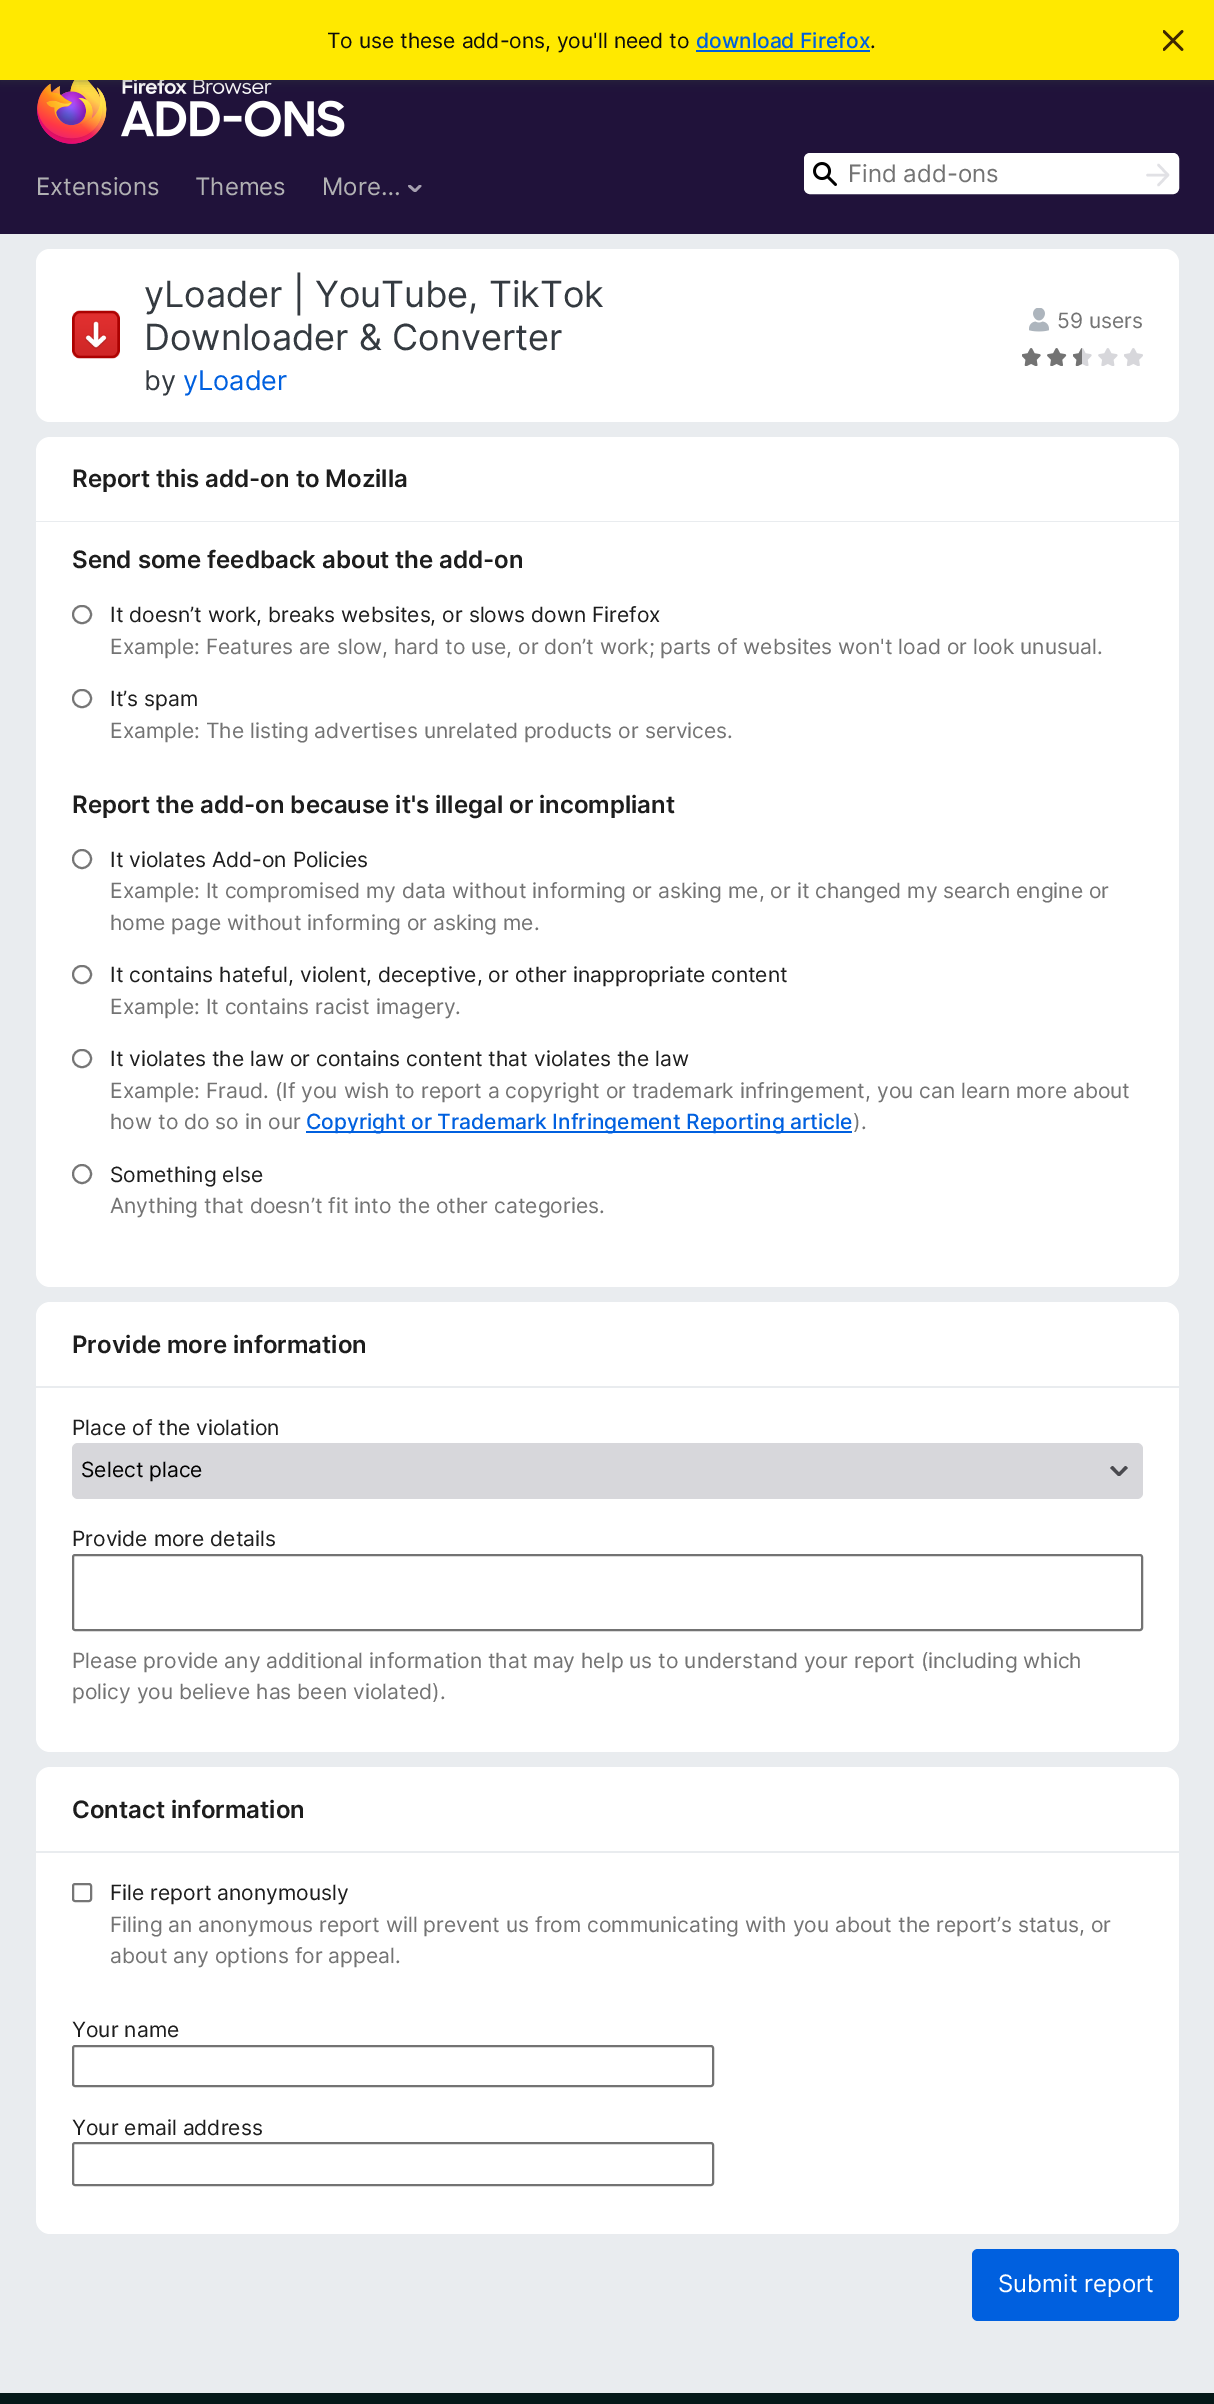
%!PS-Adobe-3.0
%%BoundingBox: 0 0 1214 2404
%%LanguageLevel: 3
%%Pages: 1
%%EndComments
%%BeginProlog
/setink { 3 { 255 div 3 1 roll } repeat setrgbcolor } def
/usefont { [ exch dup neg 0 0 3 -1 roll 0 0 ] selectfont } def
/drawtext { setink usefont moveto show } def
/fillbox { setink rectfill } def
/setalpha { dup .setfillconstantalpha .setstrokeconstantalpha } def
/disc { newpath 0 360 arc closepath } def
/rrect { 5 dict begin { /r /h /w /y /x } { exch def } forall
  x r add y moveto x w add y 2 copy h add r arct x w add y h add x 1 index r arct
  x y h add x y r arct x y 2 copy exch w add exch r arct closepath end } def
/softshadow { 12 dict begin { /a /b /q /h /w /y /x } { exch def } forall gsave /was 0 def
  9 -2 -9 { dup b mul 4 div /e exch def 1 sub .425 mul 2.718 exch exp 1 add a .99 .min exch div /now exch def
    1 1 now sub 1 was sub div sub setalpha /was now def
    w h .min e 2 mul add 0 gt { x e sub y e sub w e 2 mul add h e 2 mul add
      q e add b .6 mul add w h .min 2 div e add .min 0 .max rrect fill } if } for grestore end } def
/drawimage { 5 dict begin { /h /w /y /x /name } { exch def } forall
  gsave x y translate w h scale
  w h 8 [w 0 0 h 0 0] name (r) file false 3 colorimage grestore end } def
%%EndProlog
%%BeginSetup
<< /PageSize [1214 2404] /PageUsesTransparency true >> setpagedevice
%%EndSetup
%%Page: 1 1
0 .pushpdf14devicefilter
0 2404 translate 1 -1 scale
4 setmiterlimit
0 0 1214 2404 32 18 58 fillbox
(assets/img2.rgb) 37 80 308 64 drawimage
52 58 64 setink
0 2 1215 79 0 5 0.5 softshadow
0 0 1214 80 255 233 0 fillbox
(To use these add-ons, you'll need to) 327 48 /Inter-Regular 21 12 12 13 drawtext
(download Firefox) 696 48 /Inter-Medium 21 0 96 223 drawtext
(.) 870 48 /Inter-Regular 21 12 12 13 drawtext
696 50 174 2 0 96 223 fillbox
(assets/img1.rgb) 1163 30 21 21 drawimage
255 255 255 setink
805 154 373 39 5 rrect gsave fill grestore
2 setlinewidth
stroke
(assets/img3.rgb) 813 162 24 24 drawimage
(Find add-ons) 848 182 /Inter-Regular 24 115 115 115 drawtext
225 225 229 setink
2.5 setlinewidth
1 setlinecap
1 setlinejoin
1147.5 175 moveto 1167 175 lineto 1158.5 165 moveto 1168 175 lineto 1158.5 185 lineto stroke
(Extensions) 36 195 /Inter-Regular 24 177 177 179 drawtext
(Themes) 195 195 /Inter-Regular 24 177 177 179 drawtext
(More…) 322 195 /Inter-Regular 24 177 177 179 drawtext
gsave
408 185 14 7 rectclip
166 160 176 setink
2.7 setlinewidth
420 186 moveto 415 191 lineto 409.5 186 lineto stroke
grestore
0 234 1214 2159 233 236 239 fillbox
255 255 255 setink
36 249 1143 173 14 rrect fill
(assets/img4.rgb) 72 310 48 49 drawimage
(yLoader | YouTube, TikTok) 144 307 /Inter-Regular 36 52 58 64 drawtext
(Downloader & Converter) 144 350 /Inter-Regular 36 52 58 64 drawtext
(by) 144 390 /Inter-Regular 27 52 58 64 drawtext
(yLoader) 183 390 /Inter-Regular 27 0 96 223 drawtext
(assets/img5.rgb) 1029 308 20 24 drawimage
(59 users) 1057 328 /Inter-Regular 21 115 115 115 drawtext
(assets/img6.rgb) 1022 348 19 18 drawimage
(assets/img7.rgb) 1047 348 20 18 drawimage
(assets/img8.rgb) 1073 348 19 18 drawimage
(assets/img9.rgb) 1098 348 20 18 drawimage
(assets/img10.rgb) 1124 348 19 18 drawimage
255 255 255 setink
50 437 moveto 1165 437 lineto 1172.5 437 1179 443.5 1179 451 curveto 1179 521 lineto 36 521 lineto 36 451 lineto 36 443.5 42.5 437 50 437 curveto closepath fill
(Report this add-on to Mozilla) 72 487 /Inter-SemiBold 24 29 29 29 drawtext
255 255 255 setink
36 522 moveto 1179 522 lineto 1179 1273 lineto 1179 1280.5 1172.5 1287 1165 1287 curveto 50 1287 lineto 42.5 1287 36 1280.5 36 1273 curveto closepath fill
(Send some feedback about the add-on) 72 568 /Inter-SemiBold 24 29 29 29 drawtext
118 118 118 setink
2 setlinewidth
0 setlinecap
0 setlinejoin
73 606 18 17 8.5 rrect stroke
(It doesn’t work, breaks websites, or slows down Firefox) 110 622 /Inter-Regular 21 29 29 29 drawtext
(Example: Features are slow, hard to use, or don’t work; parts of websites won't load or look unusual.) 110 654 /Inter-Regular 21 115 115 115 drawtext
118 118 118 setink
73 690 18 17 8.5 rrect stroke
(It’s spam) 110 706 /Inter-Regular 21 29 29 29 drawtext
(Example: The listing advertises unrelated products or services.) 110 738 /Inter-Regular 21 115 115 115 drawtext
(Report the add-on because it's illegal or incompliant) 72 813 /Inter-SemiBold 24 29 29 29 drawtext
118 118 118 setink
82 859 9 disc stroke
(It violates Add-on Policies) 110 867 /Inter-Regular 21 29 29 29 drawtext
(Example: It compromised my data without informing or asking me, or it changed my search engine or) 110 898 /Inter-Regular 21 115 115 115 drawtext
(home page without informing or asking me.) 110 930 /Inter-Regular 21 115 115 115 drawtext
118 118 118 setink
73 966 18 17 8.5 rrect stroke
(It contains hateful, violent, deceptive, or other inappropriate content) 110 982 /Inter-Regular 21 29 29 29 drawtext
(Example: It contains racist imagery.) 110 1014 /Inter-Regular 21 115 115 115 drawtext
118 118 118 setink
73 1050 18 17 8.5 rrect stroke
(It violates the law or contains content that violates the law) 110 1066 /Inter-Regular 21 29 29 29 drawtext
(Example: Fraud. \(If you wish to report a copyright or trademark infringement, you can learn more about) 110 1098 /Inter-Regular 21 115 115 115 drawtext
(how to do so in our) 110 1129 /Inter-Regular 21 115 115 115 drawtext
306 1131 546 2 0 96 223 fillbox
(Copyright or Trademark Infringement Reporting article) 306 1129 /Inter-Medium 21 0 96 223 drawtext
(\).) 853 1129 /Inter-Regular 21 115 115 115 drawtext
118 118 118 setink
82 1174 9 disc stroke
(Something else) 110 1182 /Inter-Regular 21 29 29 29 drawtext
(Anything that doesn’t fit into the other categories.) 110 1213 /Inter-Regular 21 115 115 115 drawtext
255 255 255 setink
50 1302 moveto 1165 1302 lineto 1172.5 1302 1179 1308.5 1179 1316 curveto 1179 1386 lineto 36 1386 lineto 36 1316 lineto 36 1308.5 42.5 1302 50 1302 curveto closepath fill
(Provide more information) 72 1353 /Inter-SemiBold 24 29 29 29 drawtext
255 255 255 setink
36 1388 moveto 1179 1388 lineto 1179 1738 lineto 1179 1745.5 1172.5 1752 1165 1752 curveto 50 1752 lineto 42.5 1752 36 1745.5 36 1738 curveto closepath fill
(Place of the violation) 72 1435 /Inter-Regular 21 29 29 29 drawtext
215 215 219 setink
72 1443 1071 56 6 rrect fill
gsave
1110 1466 18 10 rectclip
74 74 79 setink
1125.5 1465.5 moveto 1119 1472.5 lineto 1112.5 1465.5 lineto 1110 1468 lineto 1119 1477 lineto 1128 1468 lineto closepath eofill
grestore
(Select place) 81 1477 /Inter-Regular 21 0 0 0 drawtext
(Provide more details) 72 1546 /Inter-Regular 21 29 29 29 drawtext
115 115 115 setink
73 1555 1069 75 2 rrect stroke
(Please provide any additional information that may help us to understand your report \(including which) 72 1668 /Inter-Regular 21 115 115 115 drawtext
(policy you believe has been violated\).) 72 1699 /Inter-Regular 21 115 115 115 drawtext
255 255 255 setink
50 1767 moveto 1165 1767 lineto 1172.5 1767 1179 1773.5 1179 1781 curveto 1179 1851 lineto 36 1851 lineto 36 1781 lineto 36 1773.5 42.5 1767 50 1767 curveto closepath fill
(Contact information) 72 1818 /Inter-SemiBold 24 29 29 29 drawtext
255 255 255 setink
36 1853 moveto 1179 1853 lineto 1179 2220 lineto 1179 2227.5 1172.5 2234 1165 2234 curveto 50 2234 lineto 42.5 2234 36 2227.5 36 2220 curveto closepath fill
118 118 118 setink
73 1884 18 17 2 rrect stroke
(File report anonymously) 110 1900 /Inter-Regular 21 29 29 29 drawtext
(Filing an anonymous report will prevent us from communicating with you about the report’s status, or) 110 1932 /Inter-Regular 21 115 115 115 drawtext
(about any options for appeal.) 110 1963 /Inter-Regular 21 115 115 115 drawtext
(Your name) 72 2037 /Inter-Regular 21 29 29 29 drawtext
115 115 115 setink
73 2046 640 40 2 rrect stroke
(Your email address) 72 2135 /Inter-Regular 21 29 29 29 drawtext
115 115 115 setink
73 2143 640 42 2 rrect stroke
0 96 223 setink
972 2249 207 72 6 rrect fill
(Submit report) 998 2292 /Inter-Regular 24 255 255 255 drawtext
0 2393 1214 11 5 24 24 fillbox
.poppdf14devicefilter showpage
%%EOF
